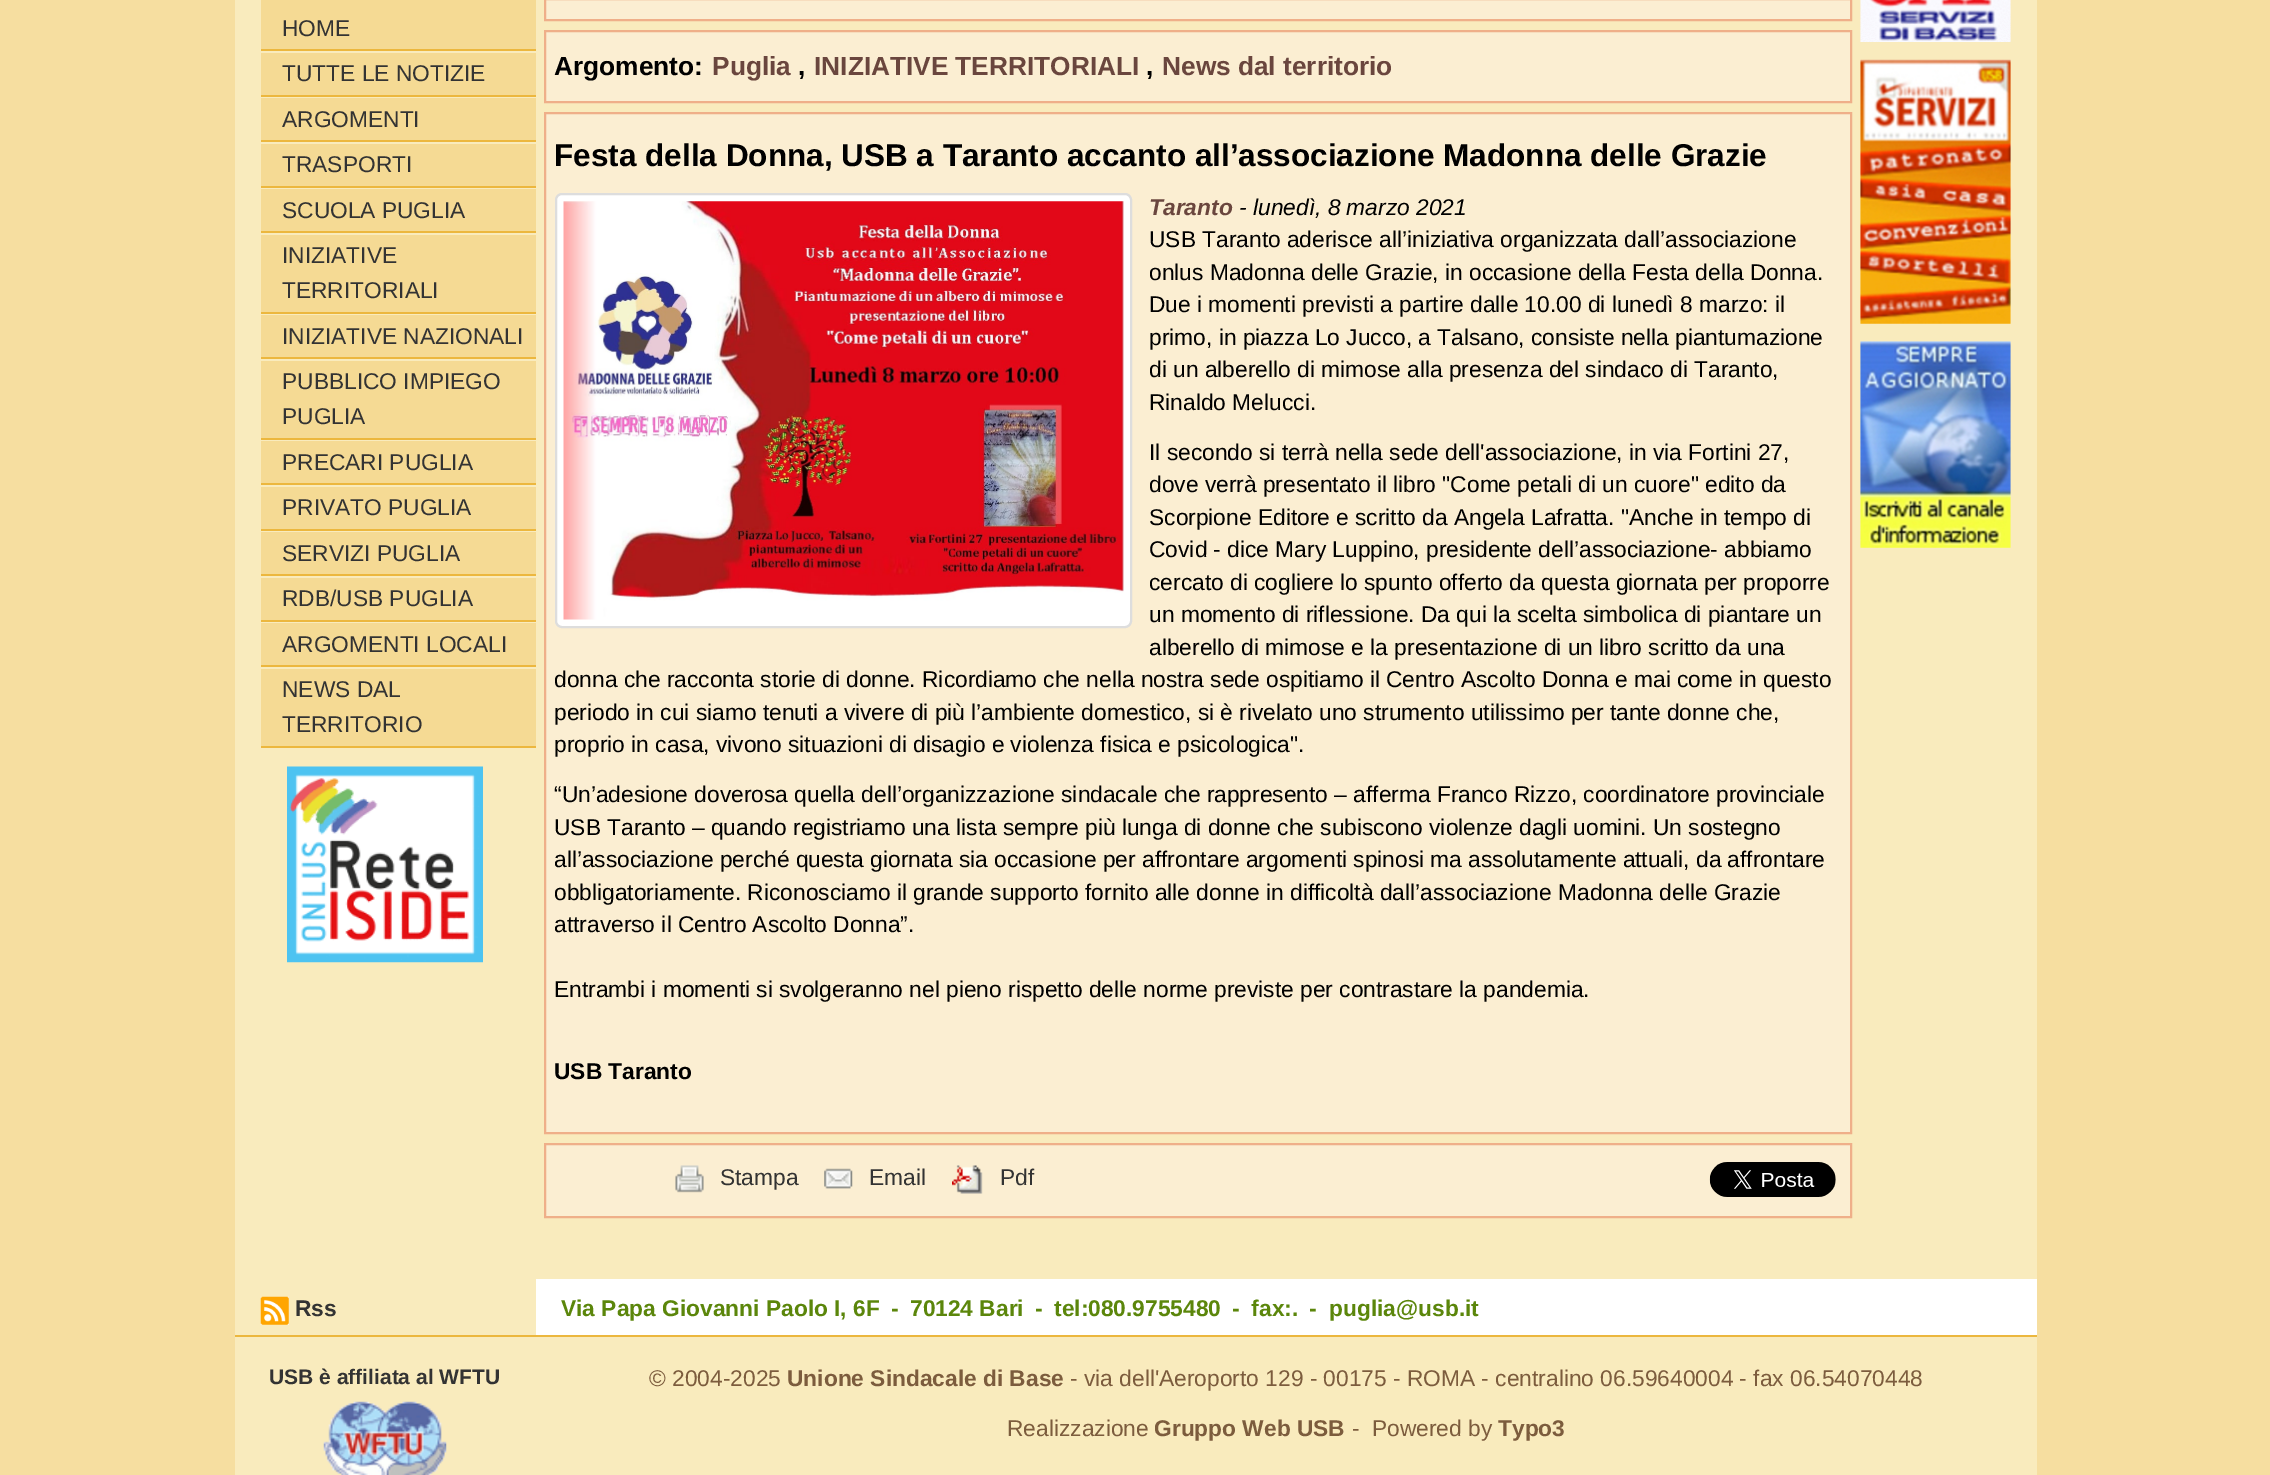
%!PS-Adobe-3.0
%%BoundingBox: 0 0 2270 1475
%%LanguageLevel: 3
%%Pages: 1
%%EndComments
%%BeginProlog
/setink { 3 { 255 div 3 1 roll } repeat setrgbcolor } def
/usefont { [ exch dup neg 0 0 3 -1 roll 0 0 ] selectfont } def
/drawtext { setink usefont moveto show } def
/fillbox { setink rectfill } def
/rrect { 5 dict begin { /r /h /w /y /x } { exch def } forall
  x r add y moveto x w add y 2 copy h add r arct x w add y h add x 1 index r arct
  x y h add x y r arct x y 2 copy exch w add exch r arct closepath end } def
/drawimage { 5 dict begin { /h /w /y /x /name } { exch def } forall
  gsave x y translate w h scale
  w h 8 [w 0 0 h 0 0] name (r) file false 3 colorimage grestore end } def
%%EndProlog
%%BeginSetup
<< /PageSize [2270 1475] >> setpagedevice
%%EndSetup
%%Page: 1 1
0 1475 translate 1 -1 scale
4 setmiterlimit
0 0 2270 1475 246 222 160 fillbox
235 0 1802 1475 249 235 189 fillbox
261 0 275 49 245 218 148 fillbox
261 49 275 2 236 183 62 fillbox
(HOME) 282 36 /LiberationSans-Regular 22.75 51 51 51 drawtext
261 95 275 2 236 183 62 fillbox
261 53 275 42 245 218 148 fillbox
(TUTTE LE NOTIZIE) 282 81 /LiberationSans-Regular 22.75 51 51 51 drawtext
261 140 275 2 236 183 62 fillbox
261 98 275 42 245 218 148 fillbox
(ARGOMENTI) 282 127 /LiberationSans-Regular 22.75 51 51 51 drawtext
261 186 275 2 236 183 62 fillbox
261 144 275 42 245 218 148 fillbox
(TRASPORTI) 282 172 /LiberationSans-Regular 22.75 51 51 51 drawtext
261 231 275 2 236 183 62 fillbox
261 189 275 42 245 218 148 fillbox
(SCUOLA PUGLIA) 282 218 /LiberationSans-Regular 22.75 51 51 51 drawtext
261 312 275 2 236 183 62 fillbox
261 235 275 77 245 218 148 fillbox
(INIZIATIVE) 282 263 /LiberationSans-Regular 22.75 51 51 51 drawtext
(TERRITORIALI) 282 298 /LiberationSans-Regular 22.75 51 51 51 drawtext
261 357 275 2 236 183 62 fillbox
261 315 275 42 245 218 148 fillbox
(INIZIATIVE NAZIONALI) 282 344 /LiberationSans-Regular 22.75 51 51 51 drawtext
261 438 275 2 236 183 62 fillbox
261 361 275 77 245 218 148 fillbox
(PUBBLICO IMPIEGO) 282 389 /LiberationSans-Regular 22.75 51 51 51 drawtext
(PUGLIA) 282 424 /LiberationSans-Regular 22.75 51 51 51 drawtext
261 483 275 2 236 183 62 fillbox
261 441 275 42 245 218 148 fillbox
(PRECARI PUGLIA) 282 470 /LiberationSans-Regular 22.75 51 51 51 drawtext
261 529 275 2 236 183 62 fillbox
261 487 275 42 245 218 148 fillbox
(PRIVATO PUGLIA) 282 515 /LiberationSans-Regular 22.75 51 51 51 drawtext
261 574 275 2 236 183 62 fillbox
261 532 275 42 245 218 148 fillbox
(SERVIZI PUGLIA) 282 561 /LiberationSans-Regular 22.75 51 51 51 drawtext
261 620 275 2 236 183 62 fillbox
261 578 275 42 245 218 148 fillbox
(RDB/USB PUGLIA) 282 606 /LiberationSans-Regular 22.75 51 51 51 drawtext
261 665 275 2 236 183 62 fillbox
261 623 275 42 245 218 148 fillbox
(ARGOMENTI LOCALI) 282 652 /LiberationSans-Regular 22.75 51 51 51 drawtext
261 746 275 2 236 183 62 fillbox
261 669 275 77 245 218 148 fillbox
(NEWS DAL) 282 697 /LiberationSans-Regular 22.75 51 51 51 drawtext
(TERRITORIO) 282 732 /LiberationSans-Regular 22.75 51 51 51 drawtext
(assets/img1.rgb) 287 766 196 197 drawimage
251 238 210 setink
545 -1 moveto 1851 -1 lineto 1851 20 lineto 545 20 lineto closepath gsave fill grestore
239 175 137 setink
2 setlinewidth
stroke
251 238 210 setink
545 31 moveto 1851 31 lineto 1851 102 lineto 545 102 lineto closepath gsave fill grestore
239 175 137 setink
stroke
(Argomento:) 554 75 /LiberationSans-Bold 26.25 0 0 0 drawtext
(Puglia) 712 75 /LiberationSans-Bold 26.25 106 70 62 drawtext
(,) 798 75 /LiberationSans-Bold 26.25 0 0 0 drawtext
(INIZIATIVE TERRITORIALI) 814 75 /LiberationSans-Bold 26.25 106 70 62 drawtext
(,) 1146 75 /LiberationSans-Bold 26.25 0 0 0 drawtext
(News dal territorio) 1162 75 /LiberationSans-Bold 26.25 106 70 62 drawtext
251 238 210 setink
545 113 moveto 1851 113 lineto 1851 1133 lineto 545 1133 lineto closepath gsave fill grestore
239 175 137 setink
stroke
(Festa della Donna, USB a Taranto accanto all’associazione Madonna delle Grazie) 554 166 /LiberationSans-Bold 31.5 0 0 0 drawtext
255 255 255 setink
556 194 575 433 6 rrect gsave fill grestore
221 221 221 setink
stroke
(assets/img2.rgb) 563 201 561 419 drawimage
(Taranto) 1149 215 /LiberationSans-BoldItalic 22.75 106 70 62 drawtext
(- lunedì, 8 marzo 2021) 1239 215 /LiberationSans-Italic 22.75 0 0 0 drawtext
(USB Taranto aderisce all’iniziativa organizzata dall’associazione) 1149 247 /LiberationSans-Regular 22.75 0 0 0 drawtext
(onlus Madonna delle Grazie, in occasione della Festa della Donna.) 1149 280 /LiberationSans-Regular 22.75 0 0 0 drawtext
(Due i momenti previsti a partire dalle 10.00 di lunedì 8 marzo: il) 1149 312 /LiberationSans-Regular 22.75 0 0 0 drawtext
(primo, in piazza Lo Jucco, a Talsano, consiste nella piantumazione) 1149 345 /LiberationSans-Regular 22.75 0 0 0 drawtext
(di un alberello di mimose alla presenza del sindaco di Taranto,) 1149 377 /LiberationSans-Regular 22.75 0 0 0 drawtext
(Rinaldo Melucci.) 1149 410 /LiberationSans-Regular 22.75 0 0 0 drawtext
(Il secondo si terrà nella sede dell'associazione, in via Fortini 27,) 1149 460 /LiberationSans-Regular 22.75 0 0 0 drawtext
(dove verrà presentato il libro "Come petali di un cuore" edito da) 1149 492 /LiberationSans-Regular 22.75 0 0 0 drawtext
(Scorpione Editore e scritto da Angela Lafratta. "Anche in tempo di) 1149 525 /LiberationSans-Regular 22.75 0 0 0 drawtext
(Covid - dice Mary Luppino, presidente dell’associazione- abbiamo) 1149 557 /LiberationSans-Regular 22.75 0 0 0 drawtext
(cercato di cogliere lo spunto offerto da questa giornata per proporre) 1149 590 /LiberationSans-Regular 22.75 0 0 0 drawtext
(un momento di riflessione. Da qui la scelta simbolica di piantare un) 1149 622 /LiberationSans-Regular 22.75 0 0 0 drawtext
(alberello di mimose e la presentazione di un libro scritto da una) 1149 655 /LiberationSans-Regular 22.75 0 0 0 drawtext
(donna che racconta storie di donne. Ricordiamo che nella nostra sede ospitiamo il Centro Ascolto Donna e mai come in questo) 554 687 /LiberationSans-Regular 22.75 0 0 0 drawtext
(periodo in cui siamo tenuti a vivere di più l’ambiente domestico, si è rivelato uno strumento utilissimo per tante donne che,) 554 720 /LiberationSans-Regular 22.75 0 0 0 drawtext
(proprio in casa, vivono situazioni di disagio e violenza fisica e psicologica".) 554 752 /LiberationSans-Regular 22.75 0 0 0 drawtext
(“Un’adesione doverosa quella dell’organizzazione sindacale che rappresento – afferma Franco Rizzo, coordinatore provinciale) 554 802 /LiberationSans-Regular 22.75 0 0 0 drawtext
(USB Taranto – quando registriamo una lista sempre più lunga di donne che subiscono violenze dagli uomini. Un sostegno) 554 835 /LiberationSans-Regular 22.75 0 0 0 drawtext
(all’associazione perché questa giornata sia occasione per affrontare argomenti spinosi ma assolutamente attuali, da affrontare) 554 867 /LiberationSans-Regular 22.75 0 0 0 drawtext
(obbligatoriamente. Riconosciamo il grande supporto fornito alle donne in difficoltà dall’associazione Madonna delle Grazie) 554 900 /LiberationSans-Regular 22.75 0 0 0 drawtext
(attraverso il Centro Ascolto Donna”.) 554 932 /LiberationSans-Regular 22.75 0 0 0 drawtext
(Entrambi i momenti si svolgeranno nel pieno rispetto delle norme previste per contrastare la pandemia.) 554 997 /LiberationSans-Regular 22.75 0 0 0 drawtext
(USB Taranto) 554 1079 /LiberationSans-Bold 22.75 0 0 0 drawtext
251 238 210 setink
545 1144 moveto 1851 1144 lineto 1851 1217 lineto 545 1217 lineto closepath gsave fill grestore
239 175 137 setink
stroke
(assets/img3.rgb) 675 1165 29 28 drawimage
(Stampa) 720 1185 /LiberationSans-Regular 22.75 51 51 51 drawtext
(assets/img4.rgb) 824 1168 29 21 drawimage
(Email) 869 1185 /LiberationSans-Regular 22.75 51 51 51 drawtext
(assets/img5.rgb) 952 1165 31 29 drawimage
(Pdf) 1000 1185 /LiberationSans-Regular 22.75 51 51 51 drawtext
(assets/img6.rgb) 1709 1162 127 35 drawimage
(assets/img7.rgb) 1860 0 151 42 drawimage
(assets/img8.rgb) 1860 59 151 265 drawimage
(assets/img9.rgb) 1860 341 151 207 drawimage
235 1335 1802 2 236 183 62 fillbox
(assets/img10.rgb) 260 1296 29 29 drawimage
(Rss) 295 1316 /LiberationSans-Bold 22.75 51 51 51 drawtext
536 1279 1501 56 255 255 255 fillbox
(Via Papa Giovanni Paolo I, 6F - 70124 Bari - tel:080.9755480 - fax:. -) 561 1316 /LiberationSans-Bold 22.75 91 134 11 drawtext
(puglia@usb.it) 1329 1316 /LiberationSans-Bold 22.75 91 134 11 drawtext
(USB è affiliata al WFTU) 269 1384 /LiberationSans-Bold 21 51 51 51 drawtext
(assets/img11.rgb) 323 1401 124 74 drawimage
(© 2004-2025) 649 1386 /LiberationSans-Regular 22.75 124 92 61 drawtext
(Unione Sindacale di Base) 787 1386 /LiberationSans-Bold 22.75 124 92 61 drawtext
(‐ via dell'Aeroporto 129 - 00175 - ROMA - centralino 06.59640004 - fax 06.54070448) 1070 1386 /LiberationSans-Regular 22.75 124 92 61 drawtext
(Realizzazione) 1007 1436 /LiberationSans-Regular 22.75 124 92 61 drawtext
(Gruppo Web USB) 1154 1436 /LiberationSans-Bold 22.75 124 92 61 drawtext
(‐) 1352 1436 /LiberationSans-Regular 22.75 124 92 61 drawtext
(Powered by) 1372 1436 /LiberationSans-Regular 22.75 124 92 61 drawtext
(Typo3) 1498 1436 /LiberationSans-Bold 22.75 124 92 61 drawtext
showpage
%%EOF
